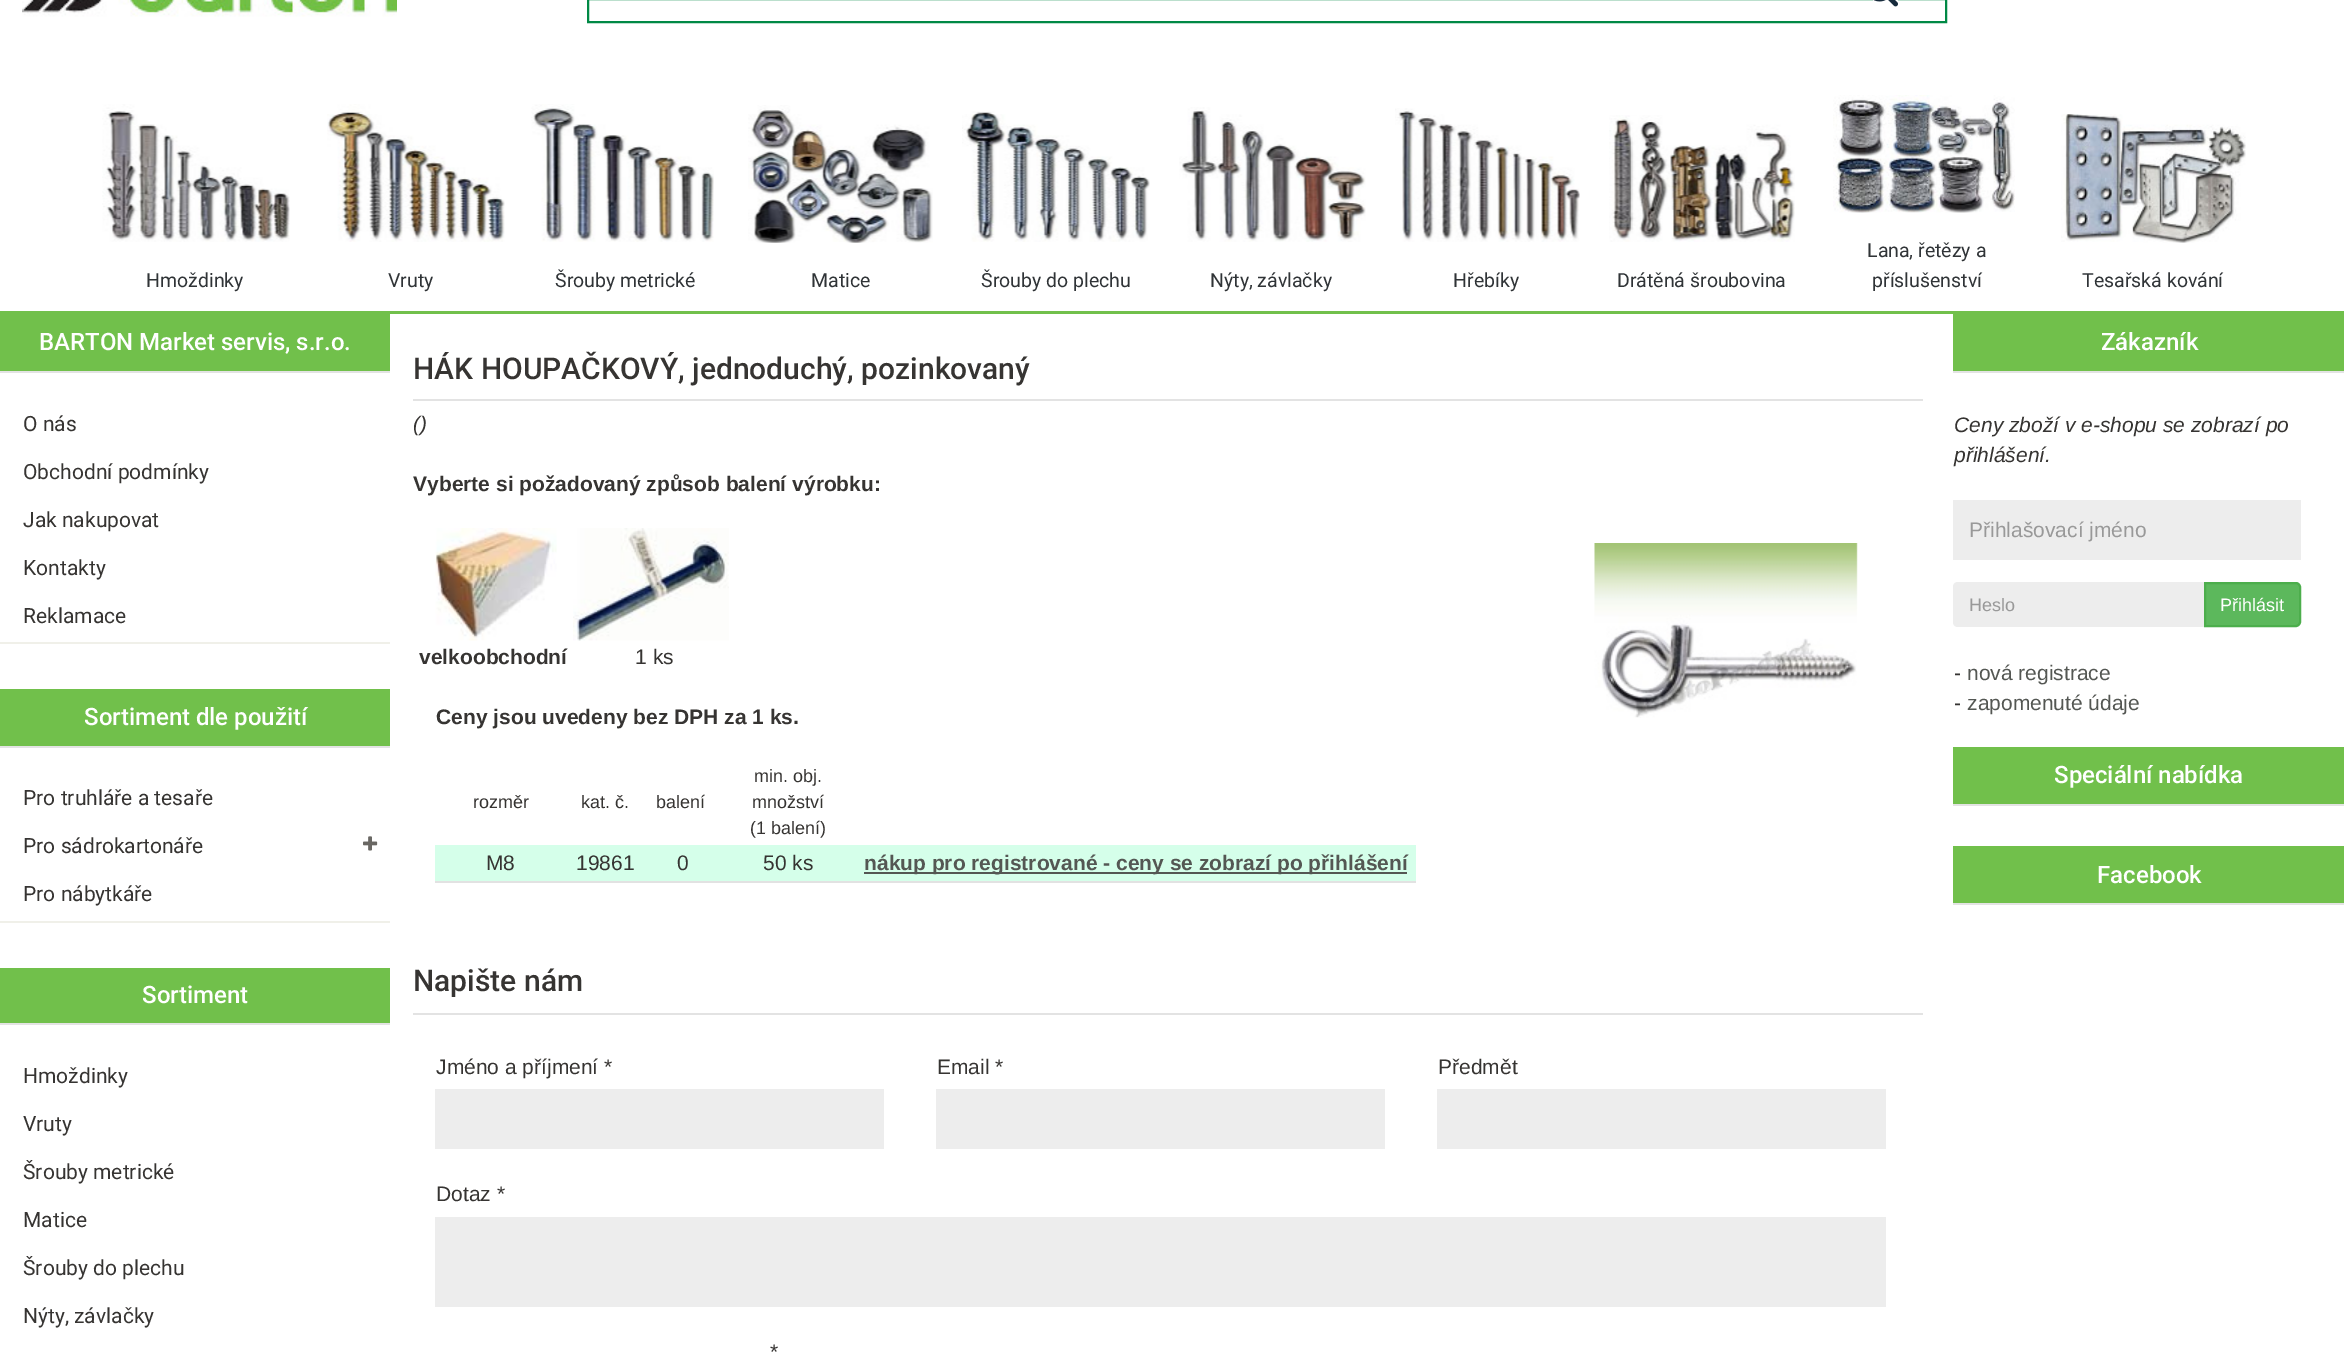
%!PS-Adobe-3.0
%%BoundingBox: 0 0 2344 1352
%%LanguageLevel: 3
%%Pages: 1
%%EndComments
%%BeginProlog
/setink { 3 { 255 div 3 1 roll } repeat setrgbcolor } def
/usefont { [ exch dup neg 0 0 3 -1 roll 0 0 ] selectfont } def
/drawtext { setink usefont moveto show } def
/fillbox { setink rectfill } def
/drawimage { 5 dict begin { /h /w /y /x /name } { exch def } forall
  gsave x y translate w h scale
  w h 8 [w 0 0 h 0 0] name (r) file false 3 colorimage grestore end } def
%%EndProlog
%%BeginSetup
<< /PageSize [2344 1352] >> setpagedevice
%%EndSetup
%%Page: 1 1
0 1352 translate 1 -1 scale
4 setmiterlimit
0 0 2344 1352 255 255 255 fillbox
(assets/img1.rgb) 22 0 375 17 drawimage
0 137 69 setink
2 setlinewidth
588 -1 1358 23 rectstroke
(assets/img2.rgb) 1873 0 25 7 drawimage
0 311 2344 3 113 192 75 fillbox
(assets/img3.rgb) 102 104 188 138 drawimage
(Hmoždinky) 146 287 /Roboto-Regular 19.5 48 52 55 drawtext
(assets/img4.rgb) 327 104 178 138 drawimage
(Vruty) 388 287 /Roboto-Regular 19.5 48 52 55 drawtext
(assets/img5.rgb) 531 104 183 138 drawimage
(Šrouby metrické) 555 287 /Roboto-Regular 19.5 48 52 55 drawtext
(assets/img6.rgb) 748 105 185 138 drawimage
(Matice) 811 287 /Roboto-Regular 19.5 48 52 55 drawtext
(assets/img7.rgb) 962 111 188 131 drawimage
(Šrouby do plechu) 981 287 /Roboto-Regular 19.5 48 52 55 drawtext
(assets/img8.rgb) 1179 107 187 135 drawimage
(Nýty, závlačky) 1210 287 /Roboto-Regular 19.5 48 52 55 drawtext
(assets/img9.rgb) 1395 108 185 134 drawimage
(Hřebíky) 1453 287 /Roboto-Regular 19.5 48 52 55 drawtext
(assets/img10.rgb) 1609 115 186 127 drawimage
(Drátěná šroubovina) 1617 287 /Roboto-Regular 19.5 48 52 55 drawtext
(assets/img11.rgb) 1833 95 182 118 drawimage
(Lana, řetězy a) 1867 257 /Roboto-Regular 19.5 48 52 55 drawtext
(příslušenství) 1872 287 /Roboto-Regular 19.5 48 52 55 drawtext
(assets/img12.rgb) 2061 114 185 129 drawimage
(Tesařská kování) 2082 287 /Roboto-Regular 19.5 48 52 55 drawtext
0 314 390 57 113 192 75 fillbox
0 371 390 2 227 227 227 fillbox
(BARTON Market servis, s.r.o.) 39 350 /Roboto-Medium 24 255 255 255 drawtext
0 642 390 2 240 240 233 fillbox
(O nás) 23 431 /Roboto-Regular 21 54 52 50 drawtext
(Obchodní podmínky) 23 479 /Roboto-Regular 21 54 52 50 drawtext
(Jak nakupovat) 23 527 /Roboto-Regular 21 54 52 50 drawtext
(Kontakty) 23 575 /Roboto-Regular 21 54 52 50 drawtext
(Reklamace) 23 623 /Roboto-Regular 21 54 52 50 drawtext
0 689 390 57 113 192 75 fillbox
0 746 390 2 227 227 227 fillbox
(Sortiment dle použití) 84 725 /Roboto-Medium 24 255 255 255 drawtext
0 921 390 2 240 240 233 fillbox
(Pro truhláře a tesaře) 23 805 /Roboto-Regular 21 54 52 50 drawtext
(Pro sádrokartonáře) 23 853 /Roboto-Regular 21 54 52 50 drawtext
(assets/img13.rgb) 363 836 15 15 drawimage
(Pro nábytkáře) 23 901 /Roboto-Regular 21 54 52 50 drawtext
0 968 390 55 113 192 75 fillbox
0 1023 390 2 227 227 227 fillbox
(Sortiment) 142 1003 /Roboto-Medium 24 255 255 255 drawtext
(Hmoždinky) 23 1083 /Roboto-Regular 21 54 52 50 drawtext
(Vruty) 23 1131 /Roboto-Regular 21 54 52 50 drawtext
(Šrouby metrické) 23 1179 /Roboto-Regular 21 54 52 50 drawtext
(Matice) 23 1227 /Roboto-Regular 21 54 52 50 drawtext
(Šrouby do plechu) 23 1275 /Roboto-Regular 21 54 52 50 drawtext
(Nýty, závlačky) 23 1323 /Roboto-Regular 21 54 52 50 drawtext
413 399 1510 2 227 227 227 fillbox
(HÁK HOUPAČKOVÝ, jednoduchý, pozinkovaný) 413 379 /Roboto-Medium 30 54 52 50 drawtext
(\(\)) 413 431 /LiberationSans-Italic 21 54 52 50 drawtext
(Vyberte si požadovaný způsob balení výrobku:) 413 491 /LiberationSans-Bold 21 54 52 50 drawtext
(assets/img14.rgb) 1594 543 264 175 drawimage
(assets/img15.rgb) 435 528 122 113 drawimage
(velkoobchodní) 419 664 /LiberationSans-Bold 21 54 52 50 drawtext
(assets/img16.rgb) 573 528 156 113 drawimage
(1 ks) 635 664 /LiberationSans-Regular 21 54 52 50 drawtext
(Ceny jsou uvedeny bez DPH za 1 ks.) 436 724 /LiberationSans-Bold 21 54 52 50 drawtext
(rozměr) 473 808 /LiberationSans-Regular 18 54 52 50 drawtext
(kat. č.) 581 808 /LiberationSans-Regular 18 54 52 50 drawtext
(balení) 656 808 /LiberationSans-Regular 18 54 52 50 drawtext
(min. obj.) 754 782 /LiberationSans-Regular 18 54 52 50 drawtext
(množství) 752 808 /LiberationSans-Regular 18 54 52 50 drawtext
(\(1 balení\)) 750 834 /LiberationSans-Regular 18 54 52 50 drawtext
435 845 981 36 213 255 234 fillbox
435 881 981 2 226 226 226 fillbox
(M8) 486 870 /LiberationSans-Regular 21 54 52 50 drawtext
(19861) 576 870 /LiberationSans-Regular 21 54 52 50 drawtext
(0) 677 870 /LiberationSans-Regular 21 54 52 50 drawtext
(50 ks) 763 870 /LiberationSans-Regular 21 54 52 50 drawtext
864 872 543 2 84 87 83 fillbox
(nákup pro registrované - ceny se zobrazí po přihlášení) 864 870 /LiberationSans-Bold 21 84 87 83 drawtext
413 1013 1510 2 227 227 227 fillbox
(Napište nám) 413 991 /Roboto-Medium 30 54 52 50 drawtext
(Jméno a příjmení *) 436 1074 /LiberationSans-Regular 21 54 52 50 drawtext
435 1089 449 60 237 237 237 fillbox
(Email *) 937 1074 /LiberationSans-Regular 21 54 52 50 drawtext
936 1089 449 60 237 237 237 fillbox
(Předmět) 1438 1074 /LiberationSans-Regular 21 54 52 50 drawtext
1437 1089 449 60 237 237 237 fillbox
(Dotaz *) 436 1201 /LiberationSans-Regular 21 54 52 50 drawtext
435 1217 1451 90 237 237 237 fillbox
(*) 770 1359 /LiberationSans-Regular 21 54 52 50 drawtext
1953 314 391 57 113 192 75 fillbox
1953 371 391 2 227 227 227 fillbox
(Zákazník) 2101 350 /Roboto-Medium 24 255 255 255 drawtext
(Ceny zboží v e-shopu se zobrazí po) 1954 432 /LiberationSans-Italic 21 54 52 50 drawtext
(přihlášení.) 1954 462 /LiberationSans-Italic 21 54 52 50 drawtext
1953 500 348 60 237 237 237 fillbox
(Přihlašovací jméno) 1969 537 /LiberationSans-Regular 21 153 153 153 drawtext
237 237 237 setink
1958 582 moveto 2205 582 lineto 2205 627 lineto 1958 627 lineto 1955 627 1953 625 1953 622 curveto 1953 587 lineto 1953 584 1955 582 1958 582 curveto closepath fill
(Heslo) 1969 611 /LiberationSans-Regular 18 153 153 153 drawtext
92 184 92 setink
2205 583 moveto 2296 583 lineto 2298 583 2300 585 2300 587 curveto 2300 622 lineto 2300 624 2298 626 2296 626 curveto 2205 626 lineto closepath gsave fill grestore
76 174 76 setink
stroke
(Přihlásit) 2220 611 /LiberationSans-Regular 18 255 255 255 drawtext
(-) 1954 680 /LiberationSans-Regular 21 54 52 50 drawtext
(nová registrace) 1967 680 /LiberationSans-Regular 21 84 87 83 drawtext
(-) 1954 710 /LiberationSans-Regular 21 54 52 50 drawtext
(zapomenuté údaje) 1967 710 /LiberationSans-Regular 21 84 87 83 drawtext
1953 747 391 57 113 192 75 fillbox
1953 804 391 2 227 227 227 fillbox
(Speciální nabídka) 2054 783 /Roboto-Medium 24 255 255 255 drawtext
1953 846 391 57 113 192 75 fillbox
1953 903 391 2 227 227 227 fillbox
(Facebook) 2097 883 /Roboto-Medium 24 255 255 255 drawtext
showpage
%%EOF
